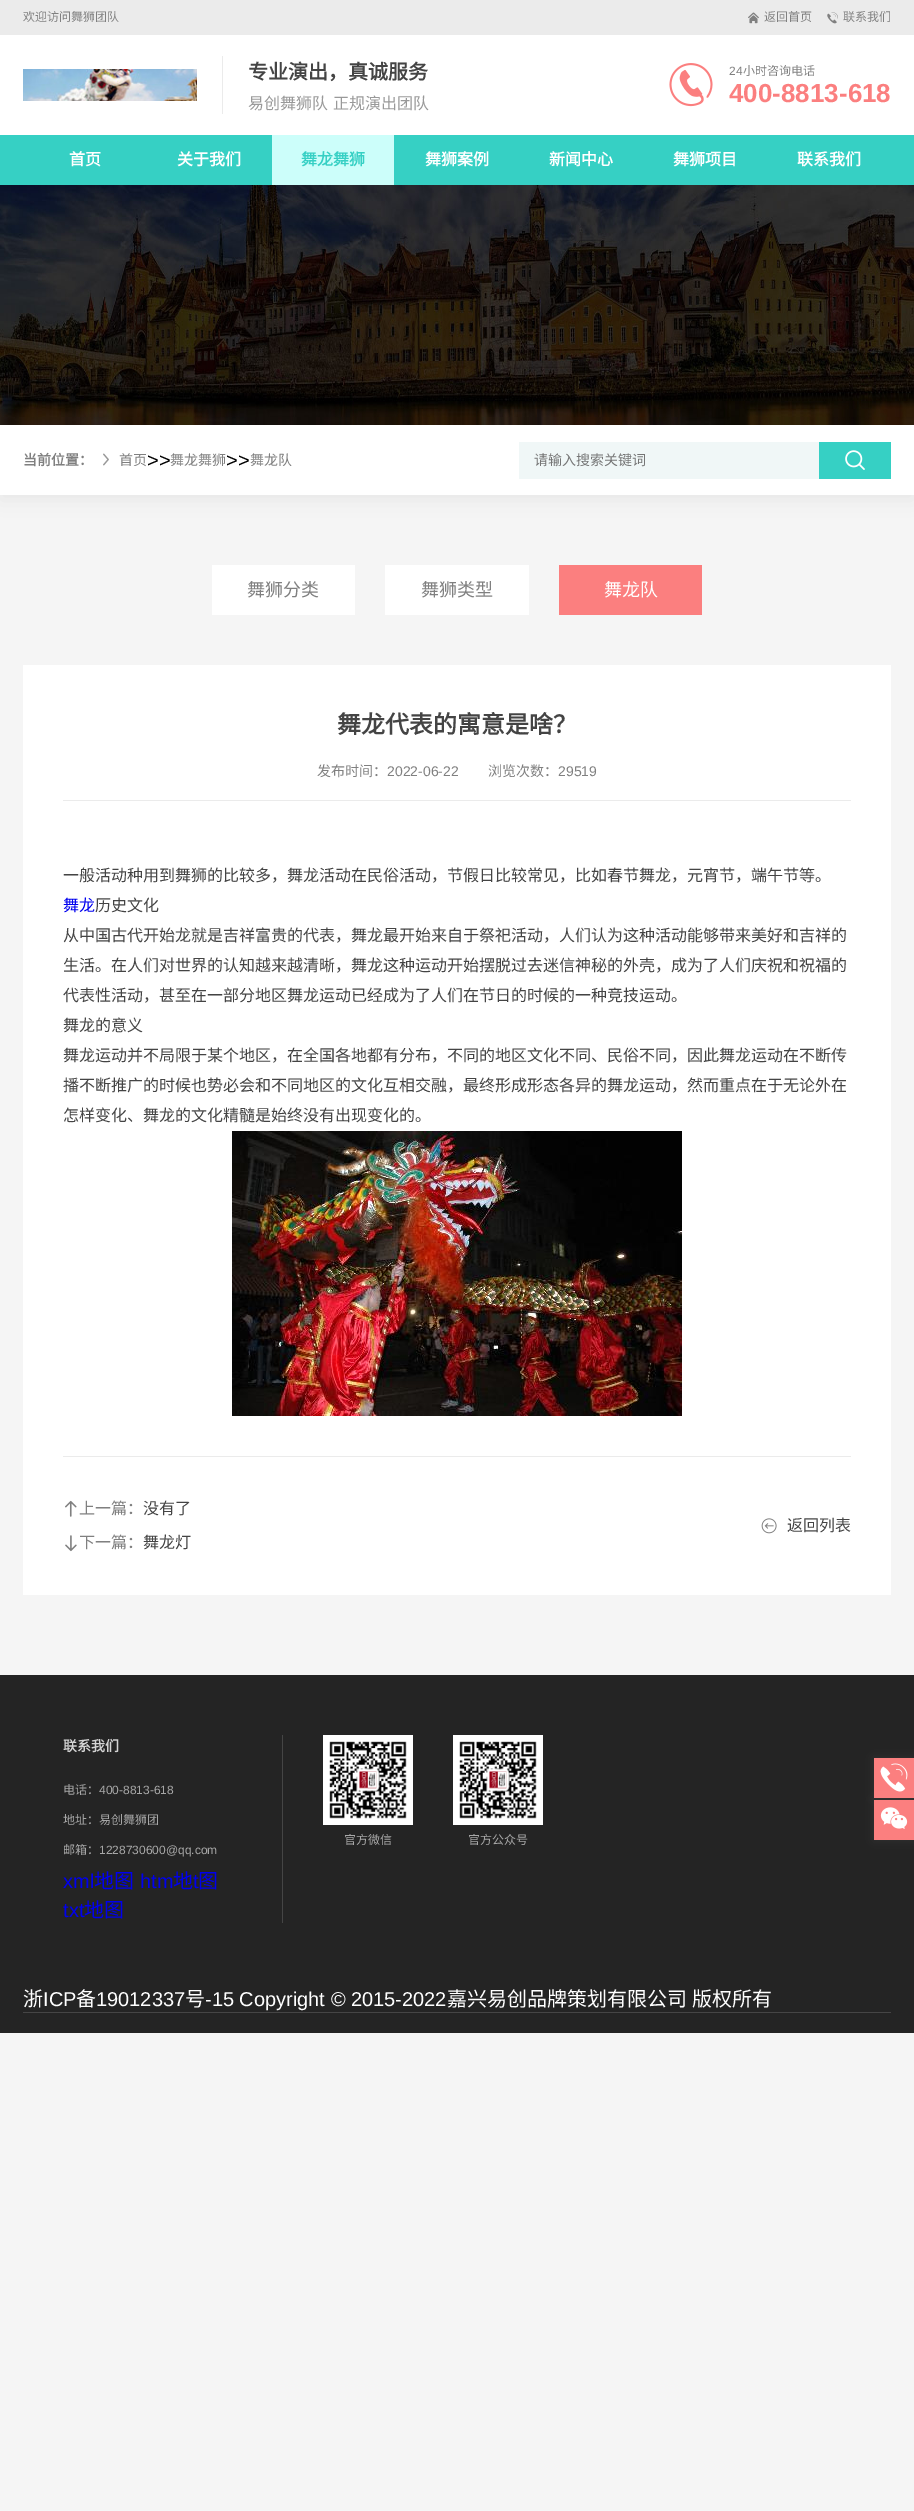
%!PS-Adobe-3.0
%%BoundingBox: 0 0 914 2511
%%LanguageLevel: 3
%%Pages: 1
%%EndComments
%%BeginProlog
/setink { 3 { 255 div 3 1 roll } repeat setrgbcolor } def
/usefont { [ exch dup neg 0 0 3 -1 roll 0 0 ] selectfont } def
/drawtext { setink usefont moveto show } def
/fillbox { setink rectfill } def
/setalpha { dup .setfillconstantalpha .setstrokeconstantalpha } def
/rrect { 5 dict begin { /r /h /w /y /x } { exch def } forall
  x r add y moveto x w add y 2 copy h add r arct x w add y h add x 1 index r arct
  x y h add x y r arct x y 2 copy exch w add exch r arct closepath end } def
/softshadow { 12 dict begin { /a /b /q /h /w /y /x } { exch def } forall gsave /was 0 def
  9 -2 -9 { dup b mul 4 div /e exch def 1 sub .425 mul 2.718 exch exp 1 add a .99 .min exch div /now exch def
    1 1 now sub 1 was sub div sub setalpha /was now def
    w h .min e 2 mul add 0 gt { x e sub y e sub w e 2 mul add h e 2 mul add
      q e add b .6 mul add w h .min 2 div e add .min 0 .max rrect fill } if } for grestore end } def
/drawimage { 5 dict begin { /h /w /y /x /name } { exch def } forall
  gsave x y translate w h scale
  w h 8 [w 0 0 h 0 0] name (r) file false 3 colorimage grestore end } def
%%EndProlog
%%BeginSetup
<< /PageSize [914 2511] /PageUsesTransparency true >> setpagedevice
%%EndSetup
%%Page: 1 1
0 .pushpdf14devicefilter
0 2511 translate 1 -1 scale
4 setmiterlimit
0 0 914 2511 245 245 245 fillbox
0 0 914 35 235 235 235 fillbox
(欢迎访问舞狮团队) 23 21 /NotoSansCJKSC-Regular 12 128 128 128 drawtext
(assets/img1.rgb) 748 12 11 12 drawimage
(返回首页) 764 21 /NotoSansCJKSC-Regular 12 128 128 128 drawtext
(assets/img2.rgb) 827 12 11 12 drawimage
(联系我们) 843 21 /NotoSansCJKSC-Regular 12 128 128 128 drawtext
0 35 914 100 255 255 255 fillbox
(assets/img3.rgb) 23 69 174 32 drawimage
222 56 1 58 235 235 235 fillbox
(专业演出，真诚服务) 248 79 /NotoSansCJKSC-Bold 20 68 68 68 drawtext
/NotoSansCJKSC-Regular 16 usefont
153 153 153 setink
248 109 moveto 1 0 32 (易创舞狮队 正规演出团队) widthshow
(assets/img4.rgb) 669 63 44 44 drawimage
(24) 729 75 /LiberationSans-Regular 12 128 128 128 drawtext
(小时咨询电话) 743 75 /NotoSansCJKSC-Regular 12 128 128 128 drawtext
(400-8813-618) 729 102 /LiberationSans-Bold 26 251 127 127 drawtext
0 135 914 50 54 208 196 fillbox
(首页) 69 165 /NotoSansCJKSC-Bold 16 255 255 255 drawtext
(关于我们) 177 165 /NotoSansCJKSC-Bold 16 255 255 255 drawtext
272 135 122 50 204 254 250 fillbox
(舞龙舞狮) 301 165 /NotoSansCJKSC-Bold 16 54 208 196 drawtext
(舞狮案例) 425 165 /NotoSansCJKSC-Bold 16 255 255 255 drawtext
(新闻中心) 549 165 /NotoSansCJKSC-Bold 16 255 255 255 drawtext
(舞狮项目) 673 165 /NotoSansCJKSC-Bold 16 255 255 255 drawtext
(联系我们) 797 165 /NotoSansCJKSC-Bold 16 255 255 255 drawtext
0 0 0 setink
0 430 914 70 0 10 0.05 softshadow
(assets/img5.rgb) 0 185 914 240 drawimage
0 425 914 70 255 255 255 fillbox
(当前位置：) 23 465 /NotoSansCJKSC-Bold 14 128 128 128 drawtext
(assets/img6.rgb) 103 453 6 13 drawimage
(首页) 119 465 /NotoSansCJKSC-Regular 14 128 128 128 drawtext
(>>) 147 467 /LiberationSans-Regular 20 0 0 0 drawtext
(舞龙舞狮) 170 465 /NotoSansCJKSC-Regular 14 128 128 128 drawtext
(>>) 226 467 /LiberationSans-Regular 20 0 0 0 drawtext
(舞龙队) 250 465 /NotoSansCJKSC-Regular 14 128 128 128 drawtext
519 442 300 37 240 247 247 fillbox
(请输入搜索关键词) 534 465 /NotoSansCJKSC-Regular 14 117 117 117 drawtext
819 442 72 37 54 208 196 fillbox
(assets/img7.rgb) 845 450 20 20 drawimage
212 565 143 50 255 255 255 fillbox
(舞狮分类) 247 596 /NotoSansCJKSC-Regular 18 128 128 128 drawtext
385 565 144 50 255 255 255 fillbox
(舞狮类型) 421 596 /NotoSansCJKSC-Regular 18 128 128 128 drawtext
559 565 143 50 251 127 127 fillbox
(舞龙队) 604 596 /NotoSansCJKSC-Regular 18 255 255 255 drawtext
23 665 868 930 255 255 255 fillbox
(舞龙代表的寓意是啥？) 337 733 /NotoSansCJKSC-Bold 24 68 68 68 drawtext
63 800 788 1 235 235 235 fillbox
(发布时间：) 317 776 /NotoSansCJKSC-Regular 14 128 128 128 drawtext
(2022-06-22) 387 776 /LiberationSans-Regular 14 128 128 128 drawtext
(浏览次数：) 488 776 /NotoSansCJKSC-Regular 14 128 128 128 drawtext
(29519) 558 776 /LiberationSans-Regular 14 128 128 128 drawtext
63 1456 788 1 235 235 235 fillbox
(一般活动种用到舞狮的比较多，舞龙活动在民俗活动，节假日比较常见，比如春节舞龙，元宵节，端午节等。) 63 881 /NotoSansCJKSC-Regular 16 68 68 68 drawtext
(舞龙) 63 911 /NotoSansCJKSC-Regular 16 0 0 238 drawtext
(历史文化) 95 911 /NotoSansCJKSC-Regular 16 68 68 68 drawtext
(从中国古代开始龙就是吉祥富贵的代表，舞龙最开始来自于祭祀活动，人们认为这种活动能够带来美好和吉祥的) 63 941 /NotoSansCJKSC-Regular 16 68 68 68 drawtext
(生活。在人们对世界的认知越来越清晰，舞龙这种运动开始摆脱过去迷信神秘的外壳，成为了人们庆祝和祝福的) 63 971 /NotoSansCJKSC-Regular 16 68 68 68 drawtext
(代表性活动，甚至在一部分地区舞龙运动已经成为了人们在节日的时候的一种竞技运动。) 63 1001 /NotoSansCJKSC-Regular 16 68 68 68 drawtext
(舞龙的意义) 63 1031 /NotoSansCJKSC-Regular 16 68 68 68 drawtext
(舞龙运动并不局限于某个地区，在全国各地都有分布，不同的地区文化不同、民俗不同，因此舞龙运动在不断传) 63 1061 /NotoSansCJKSC-Regular 16 68 68 68 drawtext
(播不断推广的时候也势必会和不同地区的文化互相交融，最终形成形态各异的舞龙运动，然而重点在于无论外在) 63 1091 /NotoSansCJKSC-Regular 16 68 68 68 drawtext
(怎样变化、舞龙的文化精髓是始终没有出现变化的。) 63 1121 /NotoSansCJKSC-Regular 16 68 68 68 drawtext
(assets/img8.rgb) 232 1131 450 285 drawimage
(assets/img9.rgb) 65 1500 12 17 drawimage
(上一篇：) 79 1514 /NotoSansCJKSC-Regular 16 128 128 128 drawtext
(没有了) 143 1514 /NotoSansCJKSC-Regular 16 68 68 68 drawtext
(assets/img10.rgb) 65 1535 12 17 drawimage
(下一篇：) 79 1548 /NotoSansCJKSC-Regular 16 128 128 128 drawtext
(舞龙灯) 143 1548 /NotoSansCJKSC-Regular 16 68 68 68 drawtext
(assets/img11.rgb) 761 1518 16 16 drawimage
(返回列表) 787 1531 /NotoSansCJKSC-Regular 16 68 68 68 drawtext
0 1675 914 358 36 36 36 fillbox
282 1735 1 188 69 69 69 fillbox
(联系我们) 63 1751 /NotoSansCJKSC-Bold 14 211 211 211 drawtext
(电话：) 63 1794 /NotoSansCJKSC-Regular 12 167 167 167 drawtext
(400-8813-618) 99 1794 /LiberationSans-Regular 12 167 167 167 drawtext
(地址：易创舞狮团) 63 1824 /NotoSansCJKSC-Regular 12 167 167 167 drawtext
(邮箱：) 63 1854 /NotoSansCJKSC-Regular 12 167 167 167 drawtext
(1228730600@qq.com) 99 1854 /LiberationSans-Regular 12 167 167 167 drawtext
(xml) 63 1888 /LiberationSans-Regular 20 0 0 238 drawtext
(地图) 94 1888 /NotoSansCJKSC-Regular 20 0 0 238 drawtext
(htm) 140 1888 /LiberationSans-Regular 20 0 0 238 drawtext
(地) 173 1888 /NotoSansCJKSC-Regular 20 0 0 238 drawtext
(t) 193 1888 /LiberationSans-Regular 20 0 0 238 drawtext
(图) 198 1888 /NotoSansCJKSC-Regular 20 0 0 238 drawtext
(txt) 63 1917 /LiberationSans-Regular 20 0 0 238 drawtext
(地图) 84 1917 /NotoSansCJKSC-Regular 20 0 0 238 drawtext
323 1735 90 90 255 255 255 fillbox
(assets/img12.rgb) 329 1741 78 78 drawimage
(官方微信) 344 1844 /NotoSansCJKSC-Regular 12 167 167 167 drawtext
453 1735 90 90 255 255 255 fillbox
(assets/img12.rgb) 459 1741 78 78 drawimage
(官方公众号) 468 1844 /NotoSansCJKSC-Regular 12 167 167 167 drawtext
(浙) 23 2006 /NotoSansCJKSC-Regular 20 255 255 255 drawtext
(ICP) 43 2006 /LiberationSans-Regular 20 255 255 255 drawtext
(备) 76 2006 /NotoSansCJKSC-Regular 20 255 255 255 drawtext
(19012337) 96 2006 /LiberationSans-Regular 20 255 255 255 drawtext
(号) 185 2006 /NotoSansCJKSC-Regular 20 255 255 255 drawtext
(-15 Copyright © 2015-2022) 205 2006 /LiberationSans-Regular 20 255 255 255 drawtext
(嘉兴易创品牌策划有限公司) 447 2006 /NotoSansCJKSC-Regular 20 255 255 255 drawtext
(版权所有) 692 2006 /NotoSansCJKSC-Regular 20 255 255 255 drawtext
23 2012 868 1 69 69 69 fillbox
255 255 255 setink
874 1758 40 40 0 5 0.05 softshadow
874 1758 40 40 251 127 127 fillbox
(assets/img13.rgb) 880 1763 28 29 drawimage
255 255 255 setink
874 1800 40 40 0 5 0.05 softshadow
874 1800 40 40 251 127 127 fillbox
(assets/img14.rgb) 880 1807 28 22 drawimage
.poppdf14devicefilter showpage
%%EOF
